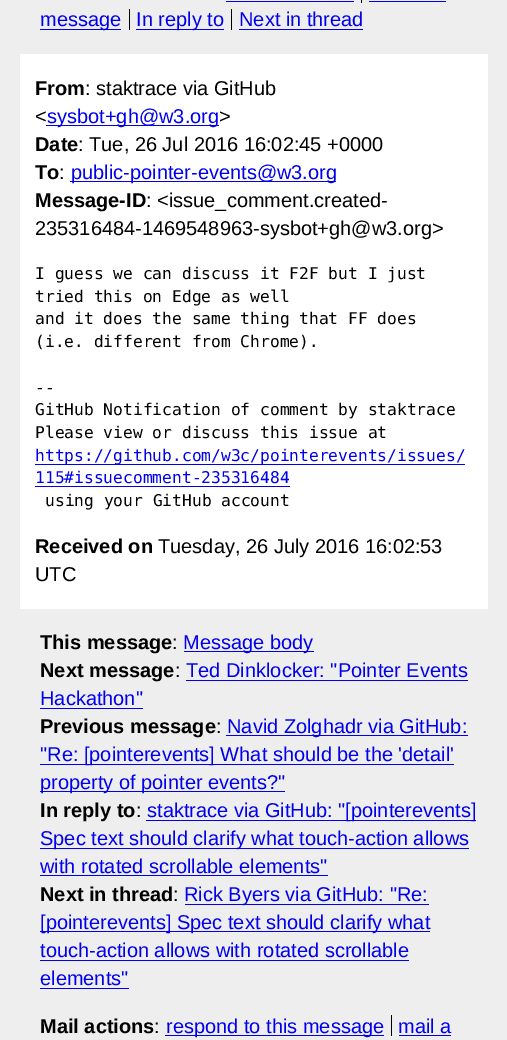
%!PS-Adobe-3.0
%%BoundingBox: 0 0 507 1040
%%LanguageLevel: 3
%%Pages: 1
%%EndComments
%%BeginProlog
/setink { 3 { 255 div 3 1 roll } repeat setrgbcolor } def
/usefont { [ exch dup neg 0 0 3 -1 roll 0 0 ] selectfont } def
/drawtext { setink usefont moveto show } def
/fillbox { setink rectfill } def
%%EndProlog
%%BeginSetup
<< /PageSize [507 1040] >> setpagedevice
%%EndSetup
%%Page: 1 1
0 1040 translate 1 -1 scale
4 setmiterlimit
0 0 507 1040 238 238 238 fillbox
40 29 81 1 0 0 238 fillbox
(message) 40 26 /LiberationSans-Regular 20 0 0 238 drawtext
136 29 88 1 0 0 238 fillbox
(In reply to) 136 26 /LiberationSans-Regular 20 0 0 238 drawtext
129 9 1 21 0 0 0 fillbox
(Next in thread) 239 26 /LiberationSans-Regular 20 0 0 238 drawtext
361 0 1 3 0 0 0 fillbox
226 1 128 1 0 0 238 fillbox
369 1 77 1 0 0 238 fillbox
231 9 1 21 0 0 0 fillbox
239 29 124 1 0 0 238 fillbox
20 54 468 555 255 255 255 fillbox
(From) 35 95 /LiberationSans-Bold 20 0 0 0 drawtext
(: staktrace via GitHub) 85 95 /LiberationSans-Regular 20 0 0 0 drawtext
(<) 35 123 /LiberationSans-Regular 20 0 0 0 drawtext
46 125 173 1 0 0 238 fillbox
(sysbot+gh@w3.org) 47 123 /LiberationSans-Regular 20 0 0 238 drawtext
(>) 219 123 /LiberationSans-Regular 20 0 0 0 drawtext
(Date) 35 151 /LiberationSans-Bold 20 0 0 0 drawtext
(: Tue, 26 Jul 2016 16:02:45 +0000) 78 151 /LiberationSans-Regular 20 0 0 0 drawtext
(To) 35 179 /LiberationSans-Bold 20 0 0 0 drawtext
(:) 59 179 /LiberationSans-Regular 20 0 0 0 drawtext
70 181 266 1 0 0 238 fillbox
(public-pointer-events@w3.org) 71 179 /LiberationSans-Regular 20 0 0 238 drawtext
(Message-ID) 35 207 /LiberationSans-Bold 20 0 0 0 drawtext
(: <issue_comment.created-) 146 207 /LiberationSans-Regular 20 0 0 0 drawtext
(235316484-1469548963-sysbot+gh@w3.org>) 35 235 /LiberationSans-Regular 20 0 0 0 drawtext
(I guess we can discuss it F2F but I just) 35 279 /DejaVuSansMono-Regular 16.25 0 0 0 drawtext
(tried this on Edge as well) 35 302 /DejaVuSansMono-Regular 16.25 0 0 0 drawtext
(and it does the same thing that FF does) 35 324 /DejaVuSansMono-Regular 16.25 0 0 0 drawtext
(\(i.e. different from Chrome\).) 35 347 /DejaVuSansMono-Regular 16.25 0 0 0 drawtext
(--) 35 393 /DejaVuSansMono-Regular 16.25 0 0 0 drawtext
(GitHub Notification of comment by staktrace) 35 415 /DejaVuSansMono-Regular 16.25 0 0 0 drawtext
(Please view or discuss this issue at) 35 438 /DejaVuSansMono-Regular 16.25 0 0 0 drawtext
35 464 430 1 0 0 238 fillbox
(https://github.com/w3c/pointerevents/issues/) 35 461 /DejaVuSansMono-Regular 16.25 0 0 238 drawtext
(115#issuecomment-235316484) 35 483 /DejaVuSansMono-Regular 16.25 0 0 238 drawtext
35 486 255 1 0 0 238 fillbox
(using your GitHub account) 45 506 /DejaVuSansMono-Regular 16.25 0 0 0 drawtext
(Received on) 35 553 /LiberationSans-Bold 20 0 0 0 drawtext
(Tuesday, 26 July 2016 16:02:53) 158 553 /LiberationSans-Regular 20 0 0 0 drawtext
(UTC) 35 581 /LiberationSans-Regular 20 0 0 0 drawtext
(This message) 40 649 /LiberationSans-Bold 20 0 0 0 drawtext
(:) 172 649 /LiberationSans-Regular 20 0 0 0 drawtext
184 651 130 1 0 0 238 fillbox
(Message body) 183 649 /LiberationSans-Regular 20 0 0 238 drawtext
(Next message) 40 677 /LiberationSans-Bold 20 0 0 0 drawtext
(:) 175 677 /LiberationSans-Regular 20 0 0 0 drawtext
(Ted Dinklocker: "Pointer Events) 186 677 /LiberationSans-Regular 20 0 0 238 drawtext
186 680 282 1 0 0 238 fillbox
(Hackathon") 40 705 /LiberationSans-Regular 20 0 0 238 drawtext
40 708 103 1 0 0 238 fillbox
(Previous message) 40 733 /LiberationSans-Bold 20 0 0 0 drawtext
(:) 216 733 /LiberationSans-Regular 20 0 0 0 drawtext
226 735 242 1 0 0 238 fillbox
(Navid Zolghadr via GitHub:) 227 733 /LiberationSans-Regular 20 0 0 238 drawtext
40 764 414 1 0 0 238 fillbox
("Re: [pointerevents] What should be the 'detail') 40 761 /LiberationSans-Regular 20 0 0 238 drawtext
40 791 245 1 0 0 238 fillbox
(property of pointer events?") 40 789 /LiberationSans-Regular 20 0 0 238 drawtext
(In reply to) 40 817 /LiberationSans-Bold 20 0 0 0 drawtext
(:) 136 817 /LiberationSans-Regular 20 0 0 0 drawtext
146 820 330 1 0 0 238 fillbox
(staktrace via GitHub: "[pointerevents]) 147 817 /LiberationSans-Regular 20 0 0 238 drawtext
40 848 429 1 0 0 238 fillbox
(Spec text should clarify what touch-action allows) 40 845 /LiberationSans-Regular 20 0 0 238 drawtext
(with rotated scrollable elements") 40 873 /LiberationSans-Regular 20 0 0 238 drawtext
40 875 288 1 0 0 238 fillbox
(Next in thread) 40 901 /LiberationSans-Bold 20 0 0 0 drawtext
(:) 173 901 /LiberationSans-Regular 20 0 0 0 drawtext
185 904 244 1 0 0 238 fillbox
(Rick Byers via GitHub: "Re:) 184 901 /LiberationSans-Regular 20 0 0 238 drawtext
40 931 390 1 0 0 238 fillbox
([pointerevents] Spec text should clarify what) 40 929 /LiberationSans-Regular 20 0 0 238 drawtext
(touch-action allows with rotated scrollable) 40 957 /LiberationSans-Regular 20 0 0 238 drawtext
40 960 369 1 0 0 238 fillbox
(elements") 40 985 /LiberationSans-Regular 20 0 0 238 drawtext
40 988 89 1 0 0 238 fillbox
(Mail actions) 40 1033 /LiberationSans-Bold 20 0 0 0 drawtext
(:) 154 1033 /LiberationSans-Regular 20 0 0 0 drawtext
165 1035 219 1 0 0 238 fillbox
(respond to this message) 166 1033 /LiberationSans-Regular 20 0 0 238 drawtext
(mail a) 398 1033 /LiberationSans-Regular 20 0 0 238 drawtext
391 1015 1 21 0 0 0 fillbox
399 1035 52 1 0 0 238 fillbox
showpage
%%EOF
